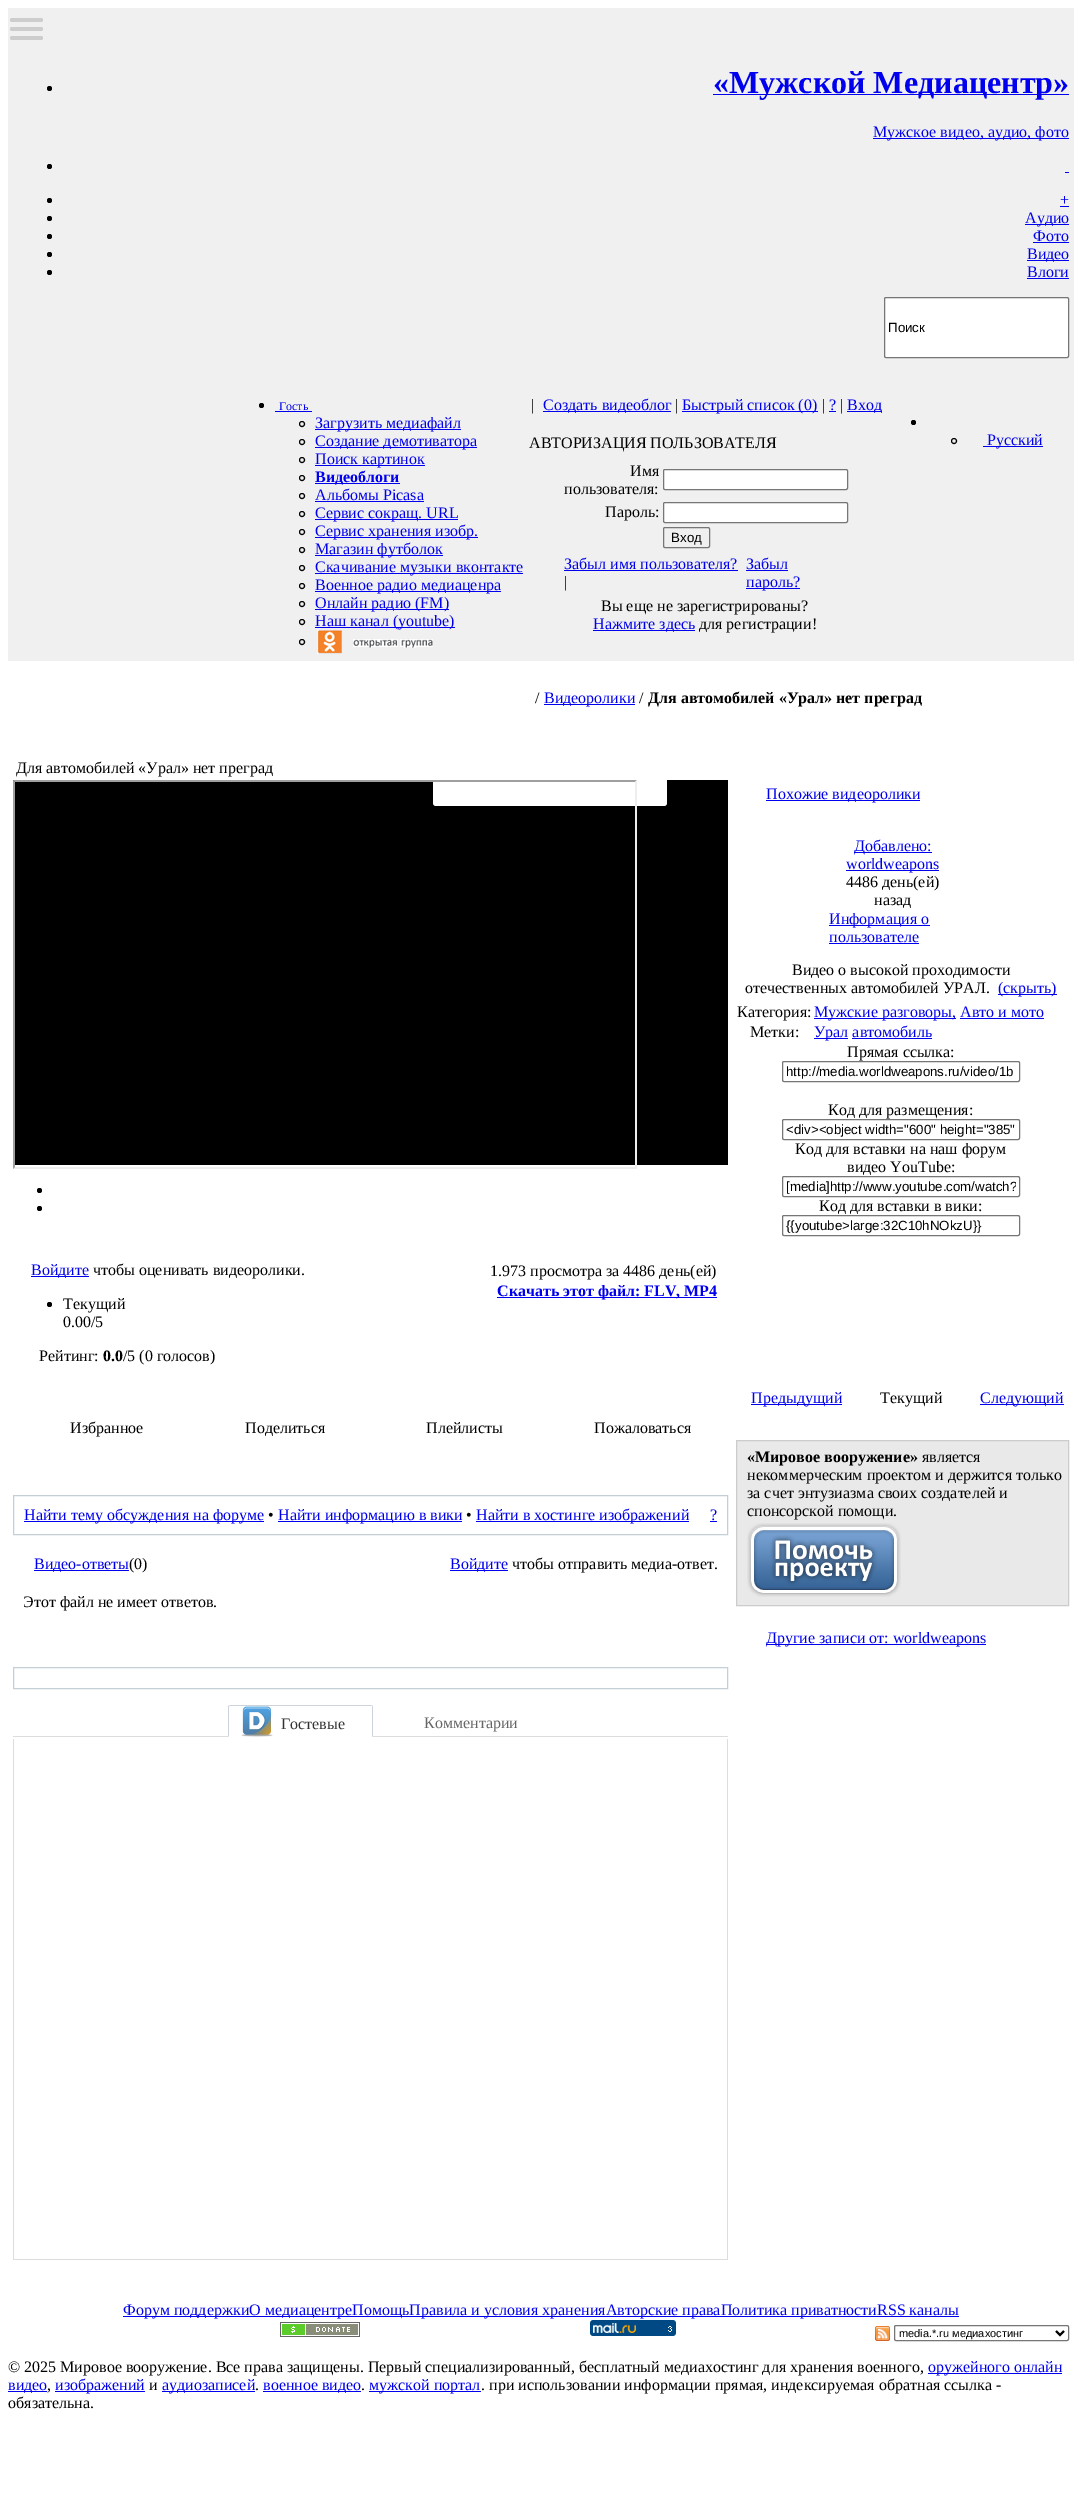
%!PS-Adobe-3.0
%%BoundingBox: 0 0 1082 2512
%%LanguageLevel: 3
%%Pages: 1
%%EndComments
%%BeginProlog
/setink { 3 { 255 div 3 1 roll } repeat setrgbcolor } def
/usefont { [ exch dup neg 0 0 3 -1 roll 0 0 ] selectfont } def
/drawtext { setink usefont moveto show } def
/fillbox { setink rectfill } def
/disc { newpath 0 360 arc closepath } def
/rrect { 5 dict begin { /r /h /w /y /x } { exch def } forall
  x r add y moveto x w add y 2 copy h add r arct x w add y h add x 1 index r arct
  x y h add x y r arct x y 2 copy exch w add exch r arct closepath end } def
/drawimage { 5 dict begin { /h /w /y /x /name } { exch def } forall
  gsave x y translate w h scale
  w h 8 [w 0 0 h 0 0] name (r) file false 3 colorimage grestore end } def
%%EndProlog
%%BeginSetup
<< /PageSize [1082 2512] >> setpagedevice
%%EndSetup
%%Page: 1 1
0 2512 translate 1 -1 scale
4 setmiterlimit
0 0 1082 2512 255 255 255 fillbox
8 8 1066 653 240 240 240 fillbox
205 205 205 setink
10 18 33 4 2 rrect fill
10 27 33 4 2 rrect fill
10 36 33 4 2 rrect fill
0 0 0 setink
49.5 88.5 2.5 disc fill
713 94 356 1 0 0 238 fillbox
(«Мужской Медиацентр») 713 93 /LiberationSerif-Bold 32 0 0 238 drawtext
873 138 196 1 0 0 238 fillbox
(Мужское видео, аудио, фото) 873 137 /LiberationSerif-Regular 16 0 0 238 drawtext
0 0 0 setink
49.5 166.5 2.5 disc fill
1065 172 4 1 0 0 238 fillbox
0 0 0 setink
49.5 200.5 2.5 disc fill
(+) 1060 205 /LiberationSerif-Regular 16 0 0 238 drawtext
1060 206 9 1 0 0 238 fillbox
0 0 0 setink
49.5 218.5 2.5 disc fill
1025 224 44 1 0 0 238 fillbox
(Аудио) 1025 223 /LiberationSerif-Regular 16 0 0 238 drawtext
0 0 0 setink
49.5 236.5 2.5 disc fill
(Фото) 1033 241 /LiberationSerif-Regular 16 0 0 238 drawtext
1033 242 36 1 0 0 238 fillbox
0 0 0 setink
49.5 254.5 2.5 disc fill
1027 260 42 1 0 0 238 fillbox
(Видео) 1027 259 /LiberationSerif-Regular 16 0 0 238 drawtext
0 0 0 setink
49.5 272.5 2.5 disc fill
(Влоги) 1027 277 /LiberationSerif-Regular 16 0 0 238 drawtext
1027 278 42 1 0 0 238 fillbox
255 255 255 setink
884.5 297.5 184 60 1.5 rrect gsave fill grestore
118 118 118 setink
stroke
(Поиск) 888 332 /LiberationSans-Regular 13.3 0 0 0 drawtext
261.5 405.5 2.5 disc fill
(Гость) 279 410 /LiberationSerif-Regular 12 0 0 238 drawtext
275 411 37 1 0 0 238 fillbox
0 0 0 setink
302 424 2.5 disc stroke
315 429 146 1 0 0 238 fillbox
(Загрузить медиафайл) 315 428 /LiberationSerif-Regular 16 0 0 238 drawtext
0 0 0 setink
302 442 2.5 disc stroke
315 447 162 1 0 0 238 fillbox
(Создание демотиватора) 315 446 /LiberationSerif-Regular 16 0 0 238 drawtext
0 0 0 setink
302 460 2.5 disc stroke
315 465 110 1 0 0 238 fillbox
(Поиск картинок) 315 464 /LiberationSerif-Regular 16 0 0 238 drawtext
0 0 0 setink
302 478 2.5 disc stroke
315 483 85 1 0 0 238 fillbox
(Видеоблоги) 315 482 /LiberationSerif-Bold 16 0 0 238 drawtext
0 0 0 setink
302 496 2.5 disc stroke
(Альбомы Picasa) 315 500 /LiberationSerif-Regular 16 0 0 238 drawtext
315 501 109 1 0 0 238 fillbox
0 0 0 setink
302 514 2.5 disc stroke
315 519 143 1 0 0 238 fillbox
(Сервис сокращ. URL) 315 518 /LiberationSerif-Regular 16 0 0 238 drawtext
0 0 0 setink
302 532 2.5 disc stroke
315 537 163 1 0 0 238 fillbox
(Сервис хранения изобр.) 315 536 /LiberationSerif-Regular 16 0 0 238 drawtext
0 0 0 setink
302 550 2.5 disc stroke
315 555 128 1 0 0 238 fillbox
(Магазин футболок) 315 554 /LiberationSerif-Regular 16 0 0 238 drawtext
0 0 0 setink
302 568 2.5 disc stroke
315 573 208 1 0 0 238 fillbox
(Скачивание музыки вконтакте) 315 572 /LiberationSerif-Regular 16 0 0 238 drawtext
0 0 0 setink
302 586 2.5 disc stroke
315 591 186 1 0 0 238 fillbox
(Военное радио медиаценра) 315 590 /LiberationSerif-Regular 16 0 0 238 drawtext
0 0 0 setink
302 604 2.5 disc stroke
315 609 134 1 0 0 238 fillbox
(Онлайн радио \(FM\)) 315 608 /LiberationSerif-Regular 16 0 0 238 drawtext
0 0 0 setink
302 622 2.5 disc stroke
315 627 140 1 0 0 238 fillbox
(Наш канал \(youtube\)) 315 626 /LiberationSerif-Regular 16 0 0 238 drawtext
0 0 0 setink
302 642 2.5 disc stroke
(assets/img1.rgb) 317 630 116 24 drawimage
(|) 531 410 /LiberationSerif-Regular 16 0 0 0 drawtext
543 411 128 1 0 0 238 fillbox
(Создать видеоблог) 543 410 /LiberationSerif-Regular 16 0 0 238 drawtext
(|) 675 410 /LiberationSerif-Regular 16 0 0 0 drawtext
682 411 136 1 0 0 238 fillbox
(Быстрый список \(0\)) 682 410 /LiberationSerif-Regular 16 0 0 238 drawtext
(|) 822 410 /LiberationSerif-Regular 16 0 0 0 drawtext
(?) 829 410 /LiberationSerif-Regular 16 0 0 238 drawtext
829 411 7 1 0 0 238 fillbox
(|) 840 410 /LiberationSerif-Regular 16 0 0 0 drawtext
847 411 35 1 0 0 238 fillbox
(Вход) 847 410 /LiberationSerif-Regular 16 0 0 238 drawtext
(АВТОРИЗАЦИЯ ПОЛЬЗОВАТЕЛЯ) 529 448 /LiberationSerif-Regular 16 0 0 0 drawtext
(Имя) 630 476 /LiberationSerif-Regular 16 0 0 0 drawtext
(пользователя:) 564 494 /LiberationSerif-Regular 16 0 0 0 drawtext
255 255 255 setink
663.5 469.5 184 20 1.5 rrect gsave fill grestore
118 118 118 setink
stroke
(Пароль:) 605 517 /LiberationSerif-Regular 16 0 0 0 drawtext
255 255 255 setink
663.5 502.5 184 20 1.5 rrect gsave fill grestore
118 118 118 setink
stroke
663.5 527.5 46 20 1.5 rrect stroke
(Вход) 671 542 /LiberationSans-Regular 13.3 0 0 0 drawtext
(Забыл имя пользователя?) 564 569 /LiberationSerif-Regular 16 0 0 238 drawtext
564 570 174 1 0 0 238 fillbox
(|) 564 587 /LiberationSerif-Regular 16 0 0 0 drawtext
(Забыл) 746 569 /LiberationSerif-Regular 16 0 0 238 drawtext
746 570 42 1 0 0 238 fillbox
746 588 54 1 0 0 238 fillbox
(пароль?) 746 587 /LiberationSerif-Regular 16 0 0 238 drawtext
(Вы еще не зарегистрированы?) 601 611 /LiberationSerif-Regular 16 0 0 0 drawtext
593 630 102 1 0 0 238 fillbox
(Нажмите здесь) 593 629 /LiberationSerif-Regular 16 0 0 238 drawtext
(для регистрации!) 699 629 /LiberationSerif-Regular 16 0 0 0 drawtext
913.5 422.5 2.5 disc fill
954 441 2.5 disc stroke
983 446 60 1 0 0 238 fillbox
(Русский) 987 445 /LiberationSerif-Regular 16 0 0 238 drawtext
(/) 535 703 /LiberationSerif-Regular 16 0 0 0 drawtext
544 704 91 1 0 0 238 fillbox
(Видеоролики) 544 703 /LiberationSerif-Regular 16 0 0 238 drawtext
(/) 639 703 /LiberationSerif-Regular 16 0 0 0 drawtext
(Для автомобилей «Урал» нет преград) 648 703 /LiberationSerif-Bold 16 0 0 0 drawtext
(Для автомобилей «Урал» нет преград) 16 773 /LiberationSerif-Regular 16 0 0 0 drawtext
13 780 715 385 0 0 0 fillbox
255 255 255 setink
433 777 234 29 3 rrect fill
159 159 159 setink
13 780 moveto 637 780 lineto 635 782 lineto 15 782 lineto closepath fill
238 238 238 setink
637 780 moveto 637 1169 lineto 635 1167 lineto 635 782 lineto closepath fill
637 1169 moveto 13 1169 lineto 15 1167 lineto 635 1167 lineto closepath fill
159 159 159 setink
13 1169 moveto 13 780 lineto 15 782 lineto 15 1167 lineto closepath fill
0 0 0 setink
39.5 1190.5 2.5 disc fill
39.5 1208.5 2.5 disc fill
31 1276 58 1 0 0 238 fillbox
(Войдите) 31 1275 /LiberationSerif-Regular 16 0 0 238 drawtext
(чтобы оценивать видеоролики.) 93 1275 /LiberationSerif-Regular 16 0 0 0 drawtext
49.5 1304.5 2.5 disc fill
(Текущий) 63 1309 /LiberationSerif-Regular 16 0 0 0 drawtext
(0.00/5) 63 1327 /LiberationSerif-Regular 16 0 0 0 drawtext
(Рейтинг:) 39 1361 /LiberationSerif-Regular 16 0 0 0 drawtext
(0.0) 103 1361 /LiberationSerif-Bold 16 0 0 0 drawtext
(/5 \(0 голосов\)) 123 1361 /LiberationSerif-Regular 16 0 0 0 drawtext
(1.973 просмотра за 4486 день\(ей\)) 490 1276 /LiberationSerif-Regular 16 0 0 0 drawtext
497 1297 220 1 0 0 238 fillbox
(Скачать этот файл: FLV, MP4) 497 1296 /LiberationSerif-Bold 16 0 0 238 drawtext
(Избранное) 70 1433 /LiberationSerif-Regular 16 0 0 0 drawtext
(Поделиться) 245 1433 /LiberationSerif-Regular 16 0 0 0 drawtext
(Плейлисты) 426 1433 /LiberationSerif-Regular 16 0 0 0 drawtext
(Пожаловаться) 594 1433 /LiberationSerif-Regular 16 0 0 0 drawtext
197 208 214 setink
13.5 1495.5 714 39 rectstroke
24 1521 240 1 0 0 238 fillbox
(Найти тему обсуждения на форуме) 24 1520 /LiberationSerif-Regular 16 0 0 238 drawtext
(•) 268 1520 /LiberationSerif-Regular 16 0 0 0 drawtext
278 1521 184 1 0 0 238 fillbox
(Найти информацию в вики) 278 1520 /LiberationSerif-Regular 16 0 0 238 drawtext
(•) 466 1520 /LiberationSerif-Regular 16 0 0 0 drawtext
476 1521 213 1 0 0 238 fillbox
(Найти в хостинге изображений) 476 1520 /LiberationSerif-Regular 16 0 0 238 drawtext
(?) 710 1520 /LiberationSerif-Regular 16 0 0 238 drawtext
710 1521 7 1 0 0 238 fillbox
34 1570 95 1 0 0 238 fillbox
(Видео-ответы) 34 1569 /LiberationSerif-Regular 16 0 0 238 drawtext
(\(0\)) 129 1569 /LiberationSerif-Regular 16 0 0 0 drawtext
450 1570 58 1 0 0 238 fillbox
(Войдите) 450 1569 /LiberationSerif-Regular 16 0 0 238 drawtext
(чтобы отправить медиа-ответ.) 512 1569 /LiberationSerif-Regular 16 0 0 0 drawtext
(Этот файл не имеет ответов.) 23 1607 /LiberationSerif-Regular 16 0 0 0 drawtext
197 208 214 setink
13.5 1667.5 714 21 rectstroke
13 1736 715 1 221 221 221 fillbox
255 255 255 setink
230 1705 moveto 371 1705 lineto 372 1705 373 1706 373 1707 curveto 373 1737 lineto 228 1737 lineto 228 1707 lineto 228 1706 229 1705 230 1705 curveto closepath fill
(assets/img2.rgb) 241 1706 32 31 drawimage
204 211 218 setink
230 1705 moveto 229 1706 lineto 230 1706 lineto 372 1706 lineto 371 1705 lineto closepath fill
373 1737 moveto 373 1707 lineto 372.5 1705.5 lineto 372 1706 lineto 372 1736 lineto closepath fill
228 1737 moveto 229 1736 lineto 229 1707 lineto 229.5 1706.5 lineto 228.5 1705.5 lineto 228 1707 lineto closepath fill
(Гостевые) 281 1729 /LiberationSerif-Regular 16 51 51 51 drawtext
(Комментарии) 424 1728 /LiberationSerif-Regular 16 102 102 102 drawtext
727 1739 1 521 221 221 221 fillbox
13 2259 715 1 221 221 221 fillbox
13 1739 1 521 221 221 221 fillbox
766 800 154 1 0 0 238 fillbox
(Похожие видеоролики) 766 799 /LiberationSerif-Regular 16 0 0 238 drawtext
854 852 78 1 0 0 238 fillbox
(Добавлено:) 854 851 /LiberationSerif-Regular 16 0 0 238 drawtext
846 870 93 1 0 0 238 fillbox
(worldweapons) 846 869 /LiberationSerif-Regular 16 0 0 238 drawtext
(4486 день\(ей\)) 846 887 /LiberationSerif-Regular 16 0 0 0 drawtext
(назад) 874 905 /LiberationSerif-Regular 16 0 0 0 drawtext
829 925 101 1 0 0 238 fillbox
(Информация о) 829 924 /LiberationSerif-Regular 16 0 0 238 drawtext
(пользователе) 829 942 /LiberationSerif-Regular 16 0 0 238 drawtext
829 943 90 1 0 0 238 fillbox
(Видео о высокой проходимости) 792 975 /LiberationSerif-Regular 16 0 0 0 drawtext
(отечественных автомобилей УРАЛ.) 745 993 /LiberationSerif-Regular 16 0 0 0 drawtext
998 994 59 1 0 0 238 fillbox
(\(скрыть\)) 998 993 /LiberationSerif-Regular 16 0 0 238 drawtext
(Категория:) 737 1017 /LiberationSerif-Regular 16 0 0 0 drawtext
814 1018 142 1 0 0 238 fillbox
(Мужские разговоры, Авто и мото) 814 1017 /LiberationSerif-Regular 16 0 0 238 drawtext
960 1018 84 1 0 0 238 fillbox
(Метки:) 750 1037 /LiberationSerif-Regular 16 0 0 0 drawtext
814 1038 34 1 0 0 238 fillbox
(Урал автомобиль) 814 1037 /LiberationSerif-Regular 16 0 0 238 drawtext
852 1038 80 1 0 0 238 fillbox
(Прямая ссылка:) 847 1057 /LiberationSerif-Regular 16 0 0 0 drawtext
118 118 118 setink
782.5 1061.5 237 20 1.5 rrect stroke
(http://media.worldweapons.ru/video/1b) 786 1076 /LiberationSans-Regular 13.3 0 0 0 drawtext
(Код для размещения:) 828 1115 /LiberationSerif-Regular 16 0 0 0 drawtext
118 118 118 setink
782.5 1119.5 237 20 1.5 rrect stroke
(<div><object width="600" height="385") 786 1134 /LiberationSans-Regular 13.3 0 0 0 drawtext
(Код для вставки на наш форум) 795 1154 /LiberationSerif-Regular 16 0 0 0 drawtext
(видео YouTube:) 847 1172 /LiberationSerif-Regular 16 0 0 0 drawtext
118 118 118 setink
782.5 1176.5 237 20 1.5 rrect stroke
gsave
786 1179 230 15 rectclip
([media]http://www.youtube.com/watch?) 786 1191 /LiberationSans-Regular 13.3 0 0 0 drawtext
grestore
(Код для вставки в вики:) 819 1211 /LiberationSerif-Regular 16 0 0 0 drawtext
118 118 118 setink
782.5 1215.5 237 20 1.5 rrect stroke
({{youtube>large:32C10hNOkzU}}) 786 1230 /LiberationSans-Regular 13.3 0 0 0 drawtext
751 1404 91 1 0 0 238 fillbox
(Предыдущий) 751 1403 /LiberationSerif-Regular 16 0 0 238 drawtext
(Текущий) 880 1403 /LiberationSerif-Regular 16 0 0 0 drawtext
980 1404 84 1 0 0 238 fillbox
(Следующий) 980 1403 /LiberationSerif-Regular 16 0 0 238 drawtext
233 233 233 setink
736.5 1440.5 moveto 1068.5 1440.5 lineto 1068.5 1605.5 lineto 736.5 1605.5 lineto closepath gsave fill grestore
204 204 204 setink
stroke
(«Мировое вооружение») 747 1462 /LiberationSerif-Bold 16 0 0 0 drawtext
(является) 922 1462 /LiberationSerif-Regular 16 0 0 0 drawtext
(некоммерческим проектом и держится только) 747 1480 /LiberationSerif-Regular 16 0 0 0 drawtext
(за счет энтузиазма своих создателей и) 747 1498 /LiberationSerif-Regular 16 0 0 0 drawtext
(спонсорской помощи.) 747 1516 /LiberationSerif-Regular 16 0 0 0 drawtext
(assets/img3.rgb) 747 1523 154 74 drawimage
766 1644 220 1 0 0 238 fillbox
(Другие записи от: worldweapons) 766 1643 /LiberationSerif-Regular 16 0 0 238 drawtext
123 2316 836 1 0 0 238 fillbox
(Форум поддержкиО медиацентреПомощьПравила и условия храненияАвторские праваПолитика приватностиRSS каналы) 123 2315 /LiberationSerif-Regular 16 0 0 238 drawtext
(assets/img4.rgb) 280 2322 80 15 drawimage
(assets/img5.rgb) 590 2320 86 16 drawimage
(assets/img6.rgb) 875 2326 15 15 drawimage
118 118 118 setink
894.5 2325.5 174 15 1.5 rrect stroke
0 0 0 setink
2 setlinewidth
1056 2331 moveto 1060 2335 lineto 1064 2331 lineto stroke
(media.*.ru медиахостинг) 899 2337 /LiberationSans-Regular 11 0 0 0 drawtext
(© 2025 Мировое вооружение. Все права защищены. Первый специализированный, бесплатный медиахостинг для хранения военного,) 8 2372 /LiberationSerif-Regular 16 0 0 0 drawtext
928 2373 134 1 0 0 238 fillbox
(оружейного онлайн) 928 2372 /LiberationSerif-Regular 16 0 0 238 drawtext
8 2391 39 1 0 0 238 fillbox
(видео) 8 2390 /LiberationSerif-Regular 16 0 0 238 drawtext
(,) 47 2390 /LiberationSerif-Regular 16 0 0 0 drawtext
55 2391 90 1 0 0 238 fillbox
(изображений) 55 2390 /LiberationSerif-Regular 16 0 0 238 drawtext
(и) 149 2390 /LiberationSerif-Regular 16 0 0 0 drawtext
162 2391 93 1 0 0 238 fillbox
(аудиозаписей) 162 2390 /LiberationSerif-Regular 16 0 0 238 drawtext
(.) 255 2390 /LiberationSerif-Regular 16 0 0 0 drawtext
263 2391 98 1 0 0 238 fillbox
(военное видео) 263 2390 /LiberationSerif-Regular 16 0 0 238 drawtext
(.) 361 2390 /LiberationSerif-Regular 16 0 0 0 drawtext
369 2391 112 1 0 0 238 fillbox
(мужской портал) 369 2390 /LiberationSerif-Regular 16 0 0 238 drawtext
(. при использовании информации прямая, индексируемая обратная ссылка -) 481 2390 /LiberationSerif-Regular 16 0 0 0 drawtext
(обязательна.) 8 2408 /LiberationSerif-Regular 16 0 0 0 drawtext
showpage
%%EOF
